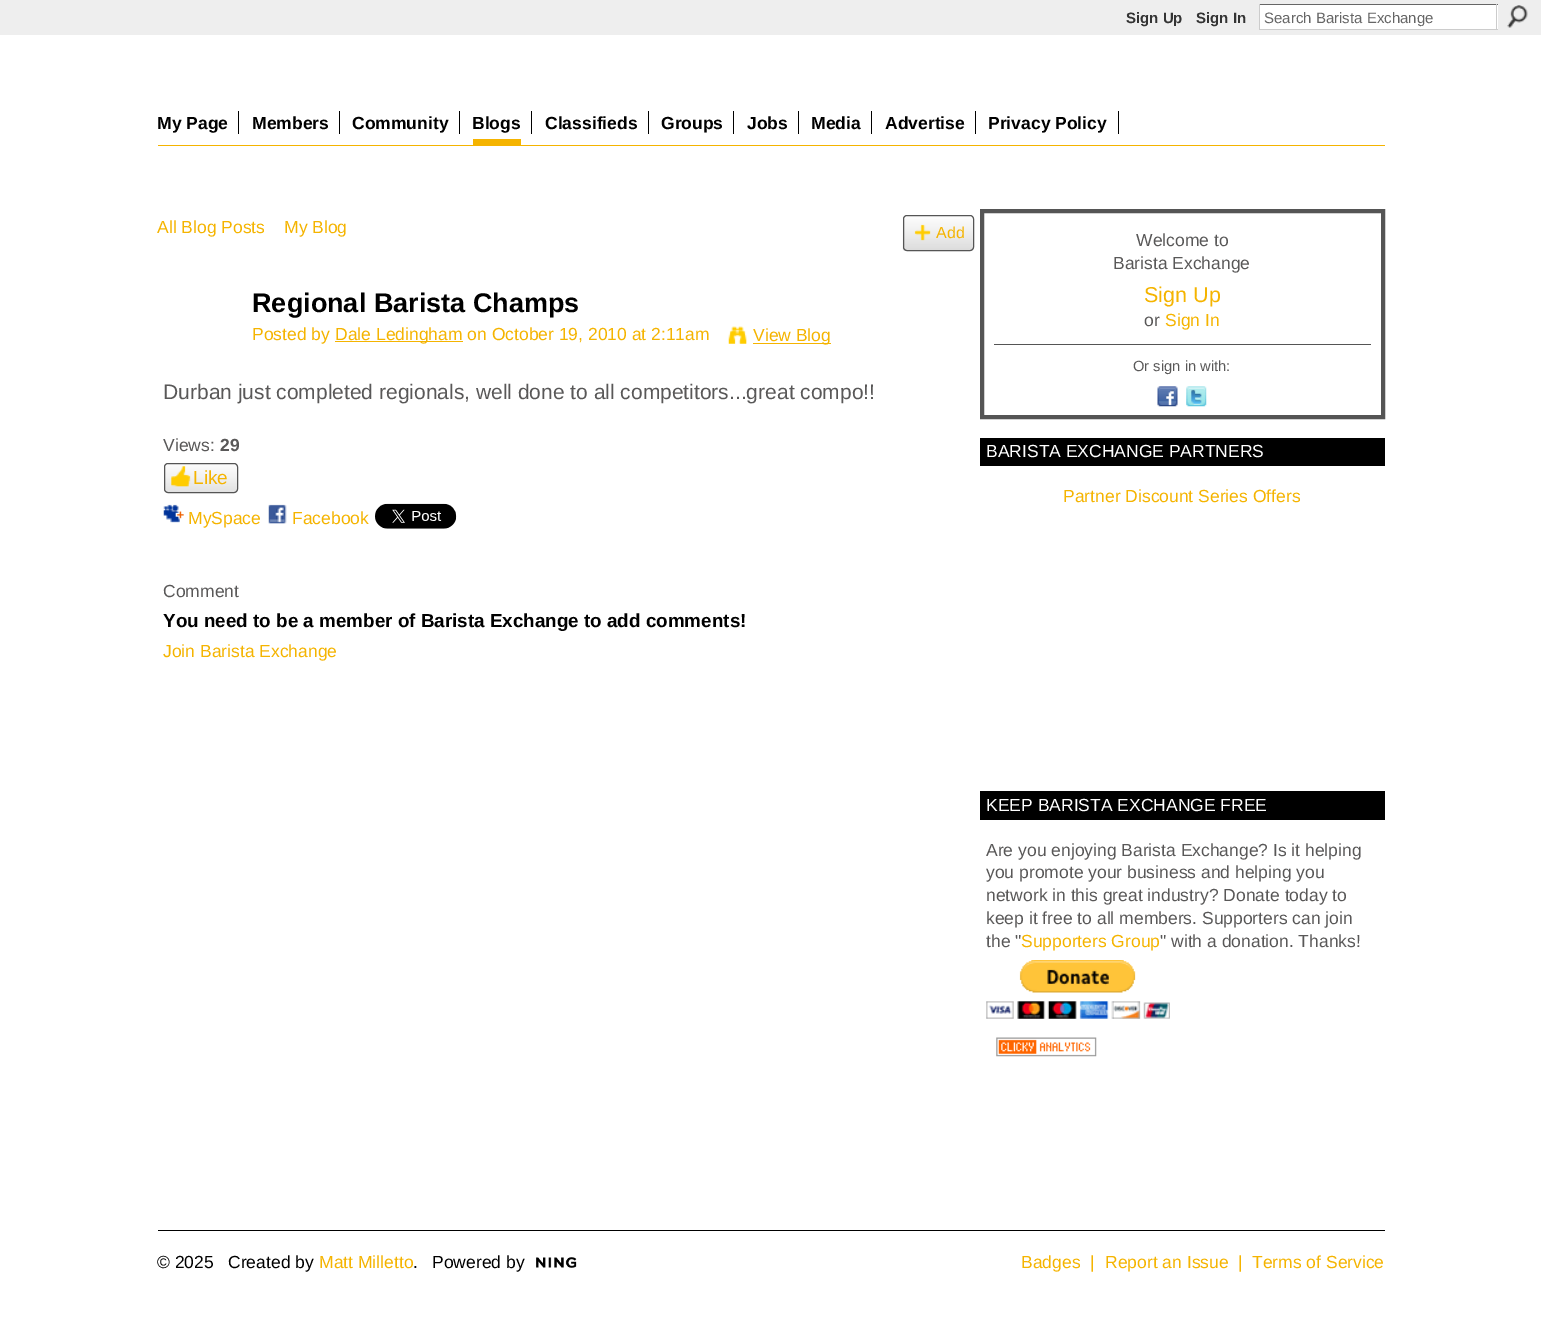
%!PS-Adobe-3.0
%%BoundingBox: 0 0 1541 1322
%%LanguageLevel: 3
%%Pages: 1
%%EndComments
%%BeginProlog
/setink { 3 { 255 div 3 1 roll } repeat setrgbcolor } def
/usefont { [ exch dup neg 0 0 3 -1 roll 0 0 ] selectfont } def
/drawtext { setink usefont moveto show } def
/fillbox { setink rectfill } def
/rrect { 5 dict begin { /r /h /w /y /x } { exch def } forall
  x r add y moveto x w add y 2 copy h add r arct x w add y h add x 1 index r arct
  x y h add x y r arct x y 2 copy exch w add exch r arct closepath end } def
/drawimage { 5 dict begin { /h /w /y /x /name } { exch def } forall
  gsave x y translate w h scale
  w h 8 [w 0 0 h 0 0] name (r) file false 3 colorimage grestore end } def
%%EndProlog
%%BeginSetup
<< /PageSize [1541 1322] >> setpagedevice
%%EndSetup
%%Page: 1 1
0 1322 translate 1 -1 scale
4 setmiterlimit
0 0 1541 1322 255 255 255 fillbox
0 0 1541 35 238 238 238 fillbox
(Sign Up) 1126 23 /LiberationSans-Bold 15 51 51 51 drawtext
(Sign In) 1196 23 /LiberationSans-Bold 15 51 51 51 drawtext
1260 5 238 24 255 255 255 fillbox
1259 4 239 1 102 102 102 fillbox
1496 4 1 26 204 204 204 fillbox
1259 29 239 1 204 204 204 fillbox
1259 4 1 26 204 204 204 fillbox
(Search Barista Exchange) 1264 23 /LiberationSans-Regular 15 102 102 102 drawtext
(assets/img1.rgb) 1507 5 21 23 drawimage
158 145 1227 1 245 180 0 fillbox
238 111 1 23 0 0 0 fillbox
(My Page) 157 129 /LiberationSans-Bold 17.5 0 0 0 drawtext
339 111 1 23 0 0 0 fillbox
(Members) 252 129 /LiberationSans-Bold 17.5 0 0 0 drawtext
459 111 1 23 0 0 0 fillbox
(Community) 352 129 /LiberationSans-Bold 17.5 0 0 0 drawtext
531 111 1 23 0 0 0 fillbox
(Blogs) 472 129 /LiberationSans-Bold 17.5 0 0 0 drawtext
473 139 48 6 245 180 0 fillbox
648 111 1 23 0 0 0 fillbox
(Classifieds) 545 129 /LiberationSans-Bold 17.5 0 0 0 drawtext
733 111 1 23 0 0 0 fillbox
(Groups) 661 129 /LiberationSans-Bold 17.5 0 0 0 drawtext
798 111 1 23 0 0 0 fillbox
(Jobs) 747 129 /LiberationSans-Bold 17.5 0 0 0 drawtext
871 111 1 23 0 0 0 fillbox
(Media) 811 129 /LiberationSans-Bold 17.5 0 0 0 drawtext
975 111 1 23 0 0 0 fillbox
(Advertise) 885 129 /LiberationSans-Bold 17.5 0 0 0 drawtext
1118 111 1 23 0 0 0 fillbox
(Privacy Policy) 988 129 /LiberationSans-Bold 17.5 0 0 0 drawtext
(All Blog Posts) 157 233 /LiberationSans-Regular 17.5 245 180 0 drawtext
(My Blog) 284 233 /LiberationSans-Regular 17.5 245 180 0 drawtext
(assets/img2.rgb) 902 217 72 34 drawimage
85 85 85 setink
903.5 215.5 70 35 3.5 rrect stroke
(assets/img3.rgb) 914 224 17 17 drawimage
(Add) 936 238 /LiberationSans-Regular 16 245 180 0 drawtext
(Regional Barista Champs) 252 312 /LiberationSans-Bold 27 0 0 0 drawtext
(Posted by) 252 340 /LiberationSans-Regular 17.5 245 180 0 drawtext
335 341 128 1 245 180 0 fillbox
(Dale Ledingham on October 19, 2010 at 2:11am) 335 340 /LiberationSans-Regular 17.5 245 180 0 drawtext
(assets/img4.rgb) 728 326 19 18 drawimage
753 343 78 1 245 180 0 fillbox
(View Blog) 753 341 /LiberationSans-Regular 17.5 245 180 0 drawtext
(Durban just completed regionals, well done to all competitors...great compo!!) 163 399 /LiberationSans-Regular 21 89 88 88 drawtext
(Views:) 163 451 /LiberationSans-Regular 17.5 89 88 88 drawtext
(29) 220 451 /LiberationSans-Bold 17.5 89 88 88 drawtext
(assets/img5.rgb) 164 465 74 28 drawimage
85 85 85 setink
164.5 463.5 73 29 3.5 rrect stroke
(assets/img6.rgb) 171 466 20 21 drawimage
(Like) 193 484 /LiberationSans-Regular 19 245 180 0 drawtext
(assets/img7.rgb) 163 504 21 19 drawimage
(MySpace) 188 524 /LiberationSans-Regular 17.5 245 180 0 drawtext
(assets/img8.rgb) 268 504 19 20 drawimage
(Facebook) 292 524 /LiberationSans-Regular 17.5 245 180 0 drawtext
(assets/img9.rgb) 375 503 82 26 drawimage
(Comment) 163 597 /LiberationSans-Regular 17.5 89 88 88 drawtext
(You need to be a member of Barista Exchange to add comments!) 163 627 /LiberationSans-Bold 18.85 0 0 0 drawtext
(Join Barista Exchange) 163 657 /LiberationSans-Regular 17.5 245 180 0 drawtext
85 85 85 setink
4 setlinewidth
982 211 401 206 rectstroke
(Welcome to) 1136 246 /LiberationSans-Regular 17.5 89 88 88 drawtext
(Barista Exchange) 1113 269 /LiberationSans-Regular 17.5 89 88 88 drawtext
(Sign Up) 1144 302 /LiberationSans-Regular 21.5 245 180 0 drawtext
(or) 1144 326 /LiberationSans-Regular 17.5 89 88 88 drawtext
(Sign In) 1165 326 /LiberationSans-Regular 17.5 245 180 0 drawtext
994 344 377 1 85 85 85 fillbox
(Or sign in with:) 1133 371 /LiberationSans-Regular 14.75 89 88 88 drawtext
(assets/img10.rgb) 1157 386 21 21 drawimage
(assets/img11.rgb) 1186 386 21 21 drawimage
980 438 405 28 0 0 0 fillbox
(BARISTA EXCHANGE PARTNERS) 986 457 /LiberationSans-Regular 17.5 255 255 255 drawtext
(Partner Discount Series Offers) 1063 502 /LiberationSans-Regular 17.5 245 180 0 drawtext
980 791 405 29 0 0 0 fillbox
(KEEP BARISTA EXCHANGE FREE) 986 811 /LiberationSans-Regular 17.5 255 255 255 drawtext
(Are you enjoying Barista Exchange? Is it helping) 986 856 /LiberationSans-Regular 17.5 89 88 88 drawtext
(you promote your business and helping you) 986 878 /LiberationSans-Regular 17.5 89 88 88 drawtext
(network in this great industry? Donate today to) 986 901 /LiberationSans-Regular 17.5 89 88 88 drawtext
(keep it free to all members. Supporters can join) 986 924 /LiberationSans-Regular 17.5 89 88 88 drawtext
(the ") 986 947 /LiberationSans-Regular 17.5 89 88 88 drawtext
(Supporters Group) 1021 947 /LiberationSans-Regular 17.5 245 180 0 drawtext
(" with a donation. Thanks!) 1160 947 /LiberationSans-Regular 17.5 89 88 88 drawtext
(assets/img12.rgb) 986 960 184 59 drawimage
(assets/img13.rgb) 996 1037 101 20 drawimage
158 1230 1227 1 0 0 0 fillbox
(© 2025) 157 1268 /LiberationSans-Regular 17.5 0 0 0 drawtext
(Created by) 228 1268 /LiberationSans-Regular 17.5 0 0 0 drawtext
(Matt Milletto) 319 1268 /LiberationSans-Regular 17.5 245 180 0 drawtext
(.) 413 1268 /LiberationSans-Regular 17.5 0 0 0 drawtext
(Powered by) 432 1268 /LiberationSans-Regular 17.5 0 0 0 drawtext
(assets/img14.rgb) 536 1257 41 11 drawimage
(Badges) 1021 1268 /LiberationSans-Regular 17.5 245 180 0 drawtext
(|) 1090 1268 /LiberationSans-Regular 17.5 245 180 0 drawtext
(Report an Issue) 1105 1268 /LiberationSans-Regular 17.5 245 180 0 drawtext
(|) 1238 1268 /LiberationSans-Regular 17.5 245 180 0 drawtext
(Terms of Service) 1252 1268 /LiberationSans-Regular 17.5 245 180 0 drawtext
showpage
%%EOF
